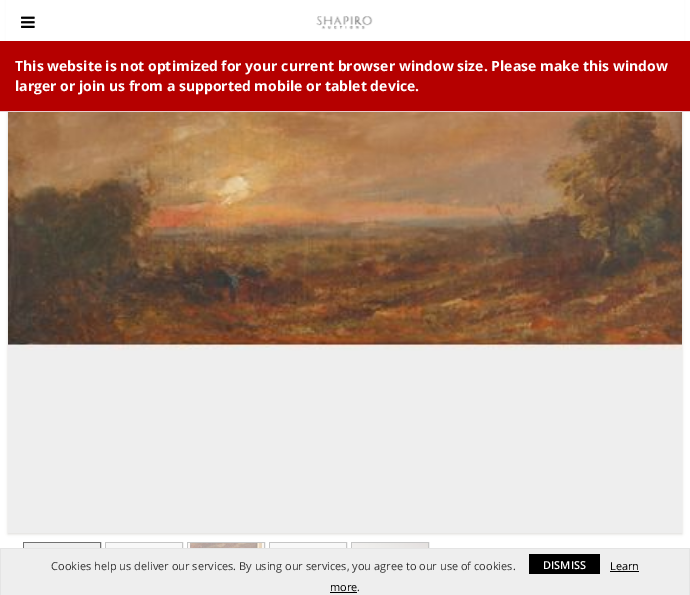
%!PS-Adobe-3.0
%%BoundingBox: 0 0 690 595
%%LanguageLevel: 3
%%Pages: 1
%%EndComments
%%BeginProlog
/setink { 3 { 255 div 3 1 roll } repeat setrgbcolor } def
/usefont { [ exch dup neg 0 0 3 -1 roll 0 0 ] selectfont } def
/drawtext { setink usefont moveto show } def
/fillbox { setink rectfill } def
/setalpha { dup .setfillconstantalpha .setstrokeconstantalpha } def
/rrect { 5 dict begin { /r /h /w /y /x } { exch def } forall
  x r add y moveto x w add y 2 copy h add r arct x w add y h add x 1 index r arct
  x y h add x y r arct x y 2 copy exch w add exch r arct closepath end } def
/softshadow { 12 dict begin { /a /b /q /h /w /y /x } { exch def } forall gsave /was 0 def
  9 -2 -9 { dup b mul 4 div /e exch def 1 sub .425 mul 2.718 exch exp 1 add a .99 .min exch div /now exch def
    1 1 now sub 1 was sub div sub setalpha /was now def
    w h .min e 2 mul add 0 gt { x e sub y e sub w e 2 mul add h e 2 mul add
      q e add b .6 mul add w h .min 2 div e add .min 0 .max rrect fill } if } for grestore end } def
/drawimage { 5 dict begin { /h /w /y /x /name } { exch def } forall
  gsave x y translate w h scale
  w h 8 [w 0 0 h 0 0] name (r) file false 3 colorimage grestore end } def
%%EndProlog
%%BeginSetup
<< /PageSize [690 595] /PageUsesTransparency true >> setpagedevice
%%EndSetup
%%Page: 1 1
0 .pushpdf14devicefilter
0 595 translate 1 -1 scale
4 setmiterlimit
0 0 690 595 255 255 255 fillbox
218 217 215 setink
8 -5 674 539 0 1.5 1 softshadow
(assets/img1.rgb) 8 112 674 421 drawimage
113 113 113 setink
23.5 542.5 77 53 rectstroke
198 198 198 setink
105.5 542.5 77 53 rectstroke
187.5 542.5 77 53 rectstroke
269.5 542.5 77 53 rectstroke
351.5 542.5 77 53 rectstroke
(assets/img2.rgb) 24 543 76 5 drawimage
(assets/img3.rgb) 106 543 76 5 drawimage
(assets/img4.rgb) 188 543 76 5 drawimage
(assets/img3.rgb) 270 543 76 5 drawimage
(assets/img5.rgb) 352 543 76 5 drawimage
6 0 678 41 255 255 255 fillbox
(assets/img6.rgb) 21 16 14 12 drawimage
(assets/img7.rgb) 316 16 57 14 drawimage
0 41 690 70 181 0 0 fillbox
0 111 690 1 235 204 209 fillbox
(This website is not optimized for your current browser window size. Please make this window) 15 71 /OpenSans-Bold 14 255 255 255 drawtext
(larger or join us from a supported mobile or tablet device.) 15 91 /OpenSans-Bold 14 255 255 255 drawtext
1 549 688 46 238 238 238 fillbox
0 548 690 1 228 228 228 fillbox
689 548 1 47 228 228 228 fillbox
0 548 1 47 228 228 228 fillbox
(Cookies help us deliver our services. By using our services, you agree to our use of cookies.) 51 570 /OpenSans-Regular 11 51 51 51 drawtext
529 554 71 20 0 0 0 fillbox
(DISMISS) 543 569 /OpenSans-SemiBold 11 255 255 255 drawtext
(Learn) 610 570 /OpenSans-Regular 11 0 0 0 drawtext
610 571 29 1 0 0 0 fillbox
(more) 330 591 /OpenSans-Regular 11 0 0 0 drawtext
330 592 27 1 0 0 0 fillbox
(.) 357 591 /OpenSans-Regular 11 51 51 51 drawtext
.poppdf14devicefilter showpage
%%EOF
